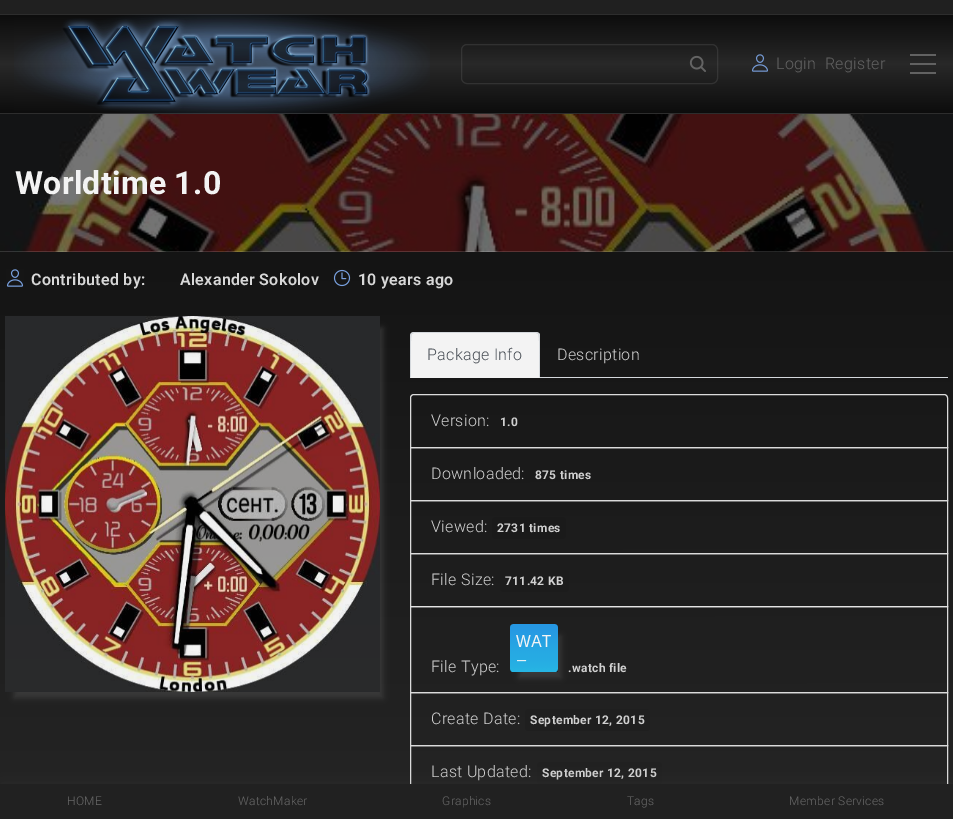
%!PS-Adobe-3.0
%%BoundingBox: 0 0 953 819
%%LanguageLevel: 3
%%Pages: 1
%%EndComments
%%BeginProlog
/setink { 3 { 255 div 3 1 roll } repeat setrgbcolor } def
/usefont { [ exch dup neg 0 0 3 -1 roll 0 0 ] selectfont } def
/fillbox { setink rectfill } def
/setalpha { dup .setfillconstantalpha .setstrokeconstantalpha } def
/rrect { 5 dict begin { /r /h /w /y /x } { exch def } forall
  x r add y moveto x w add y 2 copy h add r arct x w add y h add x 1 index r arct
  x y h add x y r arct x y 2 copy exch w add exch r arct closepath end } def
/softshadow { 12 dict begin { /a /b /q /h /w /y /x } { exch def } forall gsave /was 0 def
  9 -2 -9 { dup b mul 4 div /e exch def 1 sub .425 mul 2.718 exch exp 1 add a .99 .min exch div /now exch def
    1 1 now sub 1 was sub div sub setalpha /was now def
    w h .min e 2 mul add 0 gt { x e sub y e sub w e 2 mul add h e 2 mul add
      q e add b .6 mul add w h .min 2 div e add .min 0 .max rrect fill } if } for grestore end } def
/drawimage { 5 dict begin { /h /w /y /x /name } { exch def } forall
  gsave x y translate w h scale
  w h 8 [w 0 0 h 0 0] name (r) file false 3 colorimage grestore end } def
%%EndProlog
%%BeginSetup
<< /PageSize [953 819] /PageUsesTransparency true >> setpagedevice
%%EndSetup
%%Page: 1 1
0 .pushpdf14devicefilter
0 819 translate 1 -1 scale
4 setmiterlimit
0 0 953 819 255 255 255 fillbox
gsave 0 114 moveto 953 114 lineto 953 784 lineto 0 784 lineto closepath clip newpath
<< /ShadingType 2 /ColorSpace /DeviceRGB /Coords [476 0 477 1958] /Extend [true true] /Function << /FunctionType 3 /Domain [0 1] /Functions [<< /FunctionType 2 /Domain [0 1] /C0 [0.051 0.051 0.051] /C1 [0.165 0.165 0.165] /N 1 >> << /FunctionType 2 /Domain [0 1] /C0 [0.165 0.165 0.165] /C1 [0.051 0.051 0.051] /N 1 >>] /Bounds [0.5] /Encode [0 1 0 1] >> >> shfill grestore
0 0 953 14 32 32 32 fillbox
gsave 0 15 moveto 953 15 lineto 953 114 lineto 0 114 lineto closepath clip newpath
<< /ShadingType 2 /ColorSpace /DeviceRGB /Coords [477 14 477 114] /Extend [true true] /Function << /FunctionType 3 /Domain [0 1] /Functions [<< /FunctionType 2 /Domain [0 1] /C0 [0.047 0.047 0.047] /C1 [0.157 0.157 0.157] /N 1 >> << /FunctionType 2 /Domain [0 1] /C0 [0.157 0.157 0.157] /C1 [0.047 0.047 0.047] /N 1 >>] /Bounds [0.5] /Encode [0 1 0 1] >> >> shfill grestore
0 14 953 1 45 45 45 fillbox
(assets/img1.rgb) 14 14 416 100 drawimage
0.3 setalpha
98 98 98 setink
461.5 44.5 256 39 5.5 rrect stroke
1 setalpha
(assets/img2.rgb) 689 55 17 17 drawimage
(assets/img3.rgb) 752 54 16 18 drawimage
/Roboto-Light 16 usefont
776 69 moveto 0.3 0 (Login) ashow
825 69 moveto 0.3 0 (Register) ashow
910 63 26 2 98 98 98 fillbox
910 54 26 2 98 98 98 fillbox
910 72 26 2 98 98 98 fillbox
0.15 setalpha
0 113 953 1 232 232 232 fillbox
1 setalpha
(assets/img4.rgb) 0 114 953 138 drawimage
/Roboto-Bold 32 usefont
243 243 243 setink
15 194 moveto 0.3 0 (Worldtime 1.0) ashow
0.15 setalpha
0 251 953 1 243 243 243 fillbox
1 setalpha
(assets/img5.rgb) 6 269 18 18 drawimage
/Roboto-SemiBold 16 usefont
216 216 216 setink
31 285 moveto 0.3 0 (Contributed by:) ashow
180 285 moveto 0.3 0 (Alexander Sokolov) ashow
(assets/img6.rgb) 333 269 18 18 drawimage
358 285 moveto 0.3 0 (10 years ago) ashow
gsave
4 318 moveto 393 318 lineto 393 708 lineto 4 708 lineto closepath 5 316 moveto 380 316 lineto 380 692 lineto 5 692 lineto closepath eoclip newpath
69 69 69 setink
14 328 369 370 0 3 0.66 softshadow
grestore
(assets/img7.rgb) 5 316 375 376 drawimage
540 377 408 1 212 216 220 fillbox
243 243 243 setink
414 332 moveto 536 332 lineto 538 332 540 334 540 336 curveto 540 378 lineto 410 378 lineto 410 336 lineto 410 334 412 332 414 332 curveto closepath fill
212 216 220 setink
414 332 moveto 411 333 lineto 412 334 lineto 414 333 lineto 536 333 lineto 538 334 lineto 539 333 lineto 536 332 lineto closepath fill
540 378 moveto 540 336 lineto 540 335 540 334 539 333 curveto 538 334 lineto 540 336 539 372 539 377 curveto closepath fill
243 243 243 setink
540 378 moveto 539 377 lineto 411 377 lineto 410 378 lineto closepath fill
212 216 220 setink
410 378 moveto 411 377 lineto 411 372 410 336 412 334 curveto 411 333 lineto 410 336 lineto closepath fill
/Roboto-Light 16 usefont
71 77 84 setink
427 360 moveto 0.3 0 (Package Info) ashow
209 209 209 setink
557 360 moveto 0.3 0 (Description) ashow
219 219 219 setink
414 394.5 moveto 944 394.5 lineto 946 394.5 947.5 396 947.5 398 curveto 947.5 447.5 lineto 410.5 447.5 lineto 410.5 398 lineto 410.5 396 412 394.5 414 394.5 curveto closepath stroke
209 209 209 setink
431 426 moveto 0.3 0 (Version:) ashow
/Roboto-Bold 12 usefont
500 426 moveto 0.3 0 (1.0) ashow
219 219 219 setink
410.5 447.5 537 53 rectstroke
/Roboto-Light 16 usefont
209 209 209 setink
431 479 moveto 0.3 0 (Downloaded:) ashow
/Roboto-Bold 12 usefont
535 479 moveto 0.3 0 (875 times) ashow
219 219 219 setink
410.5 500.5 537 53 rectstroke
/Roboto-Light 16 usefont
209 209 209 setink
431 532 moveto 0.3 0 (Viewed:) ashow
26 26 26 setink
492 517 74 22 3 rrect fill
/Roboto-Bold 12 usefont
209 209 209 setink
497 532 moveto 0.3 0 (2731 times) ashow
219 219 219 setink
410.5 553.5 537 53 rectstroke
/Roboto-Light 16 usefont
209 209 209 setink
431 585 moveto 0.3 0 (File Size:) ashow
28 28 28 setink
500 570 69 22 3 rrect fill
/Roboto-Bold 12 usefont
209 209 209 setink
505 585 moveto 0.3 0 (711.42 KB) ashow
0.03 setalpha
410 606 538 1 0 0 0 fillbox
0.95 setalpha
229 229 229 setink
410.5 606.5 537 86 rectstroke
/Roboto-Light 16 usefont
1 setalpha
209 209 209 setink
431 672 moveto 0.3 0 (File Type:) ashow
gsave
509 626 moveto 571 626 lineto 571 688 lineto 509 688 lineto closepath 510 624 moveto 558 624 lineto 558 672 lineto 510 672 lineto closepath eoclip newpath
67 67 67 setink
519 636 42 42 0 3 0.69 softshadow
grestore
(assets/img8.rgb) 510 624 48 48 drawimage
/Roboto-Bold 12 usefont
568 672 moveto 0.3 0 (.watch file) ashow
219 219 219 setink
410.5 692.5 537 53 rectstroke
/Roboto-Light 16 usefont
209 209 209 setink
431 724 moveto 0.3 0 (Create Date:) ashow
31 31 31 setink
525 709 125 22 3 rrect fill
/Roboto-Bold 12 usefont
209 209 209 setink
530 724 moveto 0.3 0 (September 12, 2015) ashow
219 219 219 setink
410.5 745.5 537 53 rectstroke
/Roboto-Light 16 usefont
209 209 209 setink
431 777 moveto 0.3 0 (Last Updated:) ashow
33 33 33 setink
537 762 125 22 3 rrect fill
/Roboto-Bold 12 usefont
209 209 209 setink
542 777 moveto 0.3 0 (September 12, 2015) ashow
97 97 97 setink
0 784 953 35 0 10 0.15 softshadow
0 784 953 35 33 33 33 fillbox
/Roboto-Light 12 usefont
104 104 104 setink
67 805 moveto 0.3 0 (HOME) ashow
238 805 moveto 0.3 0 (WatchMaker) ashow
442 805 moveto 0.3 0 (Graphics) ashow
627 805 moveto 0.3 0 (Tags) ashow
789 805 moveto 0.3 0 (Member Services) ashow
.poppdf14devicefilter showpage
%%EOF
